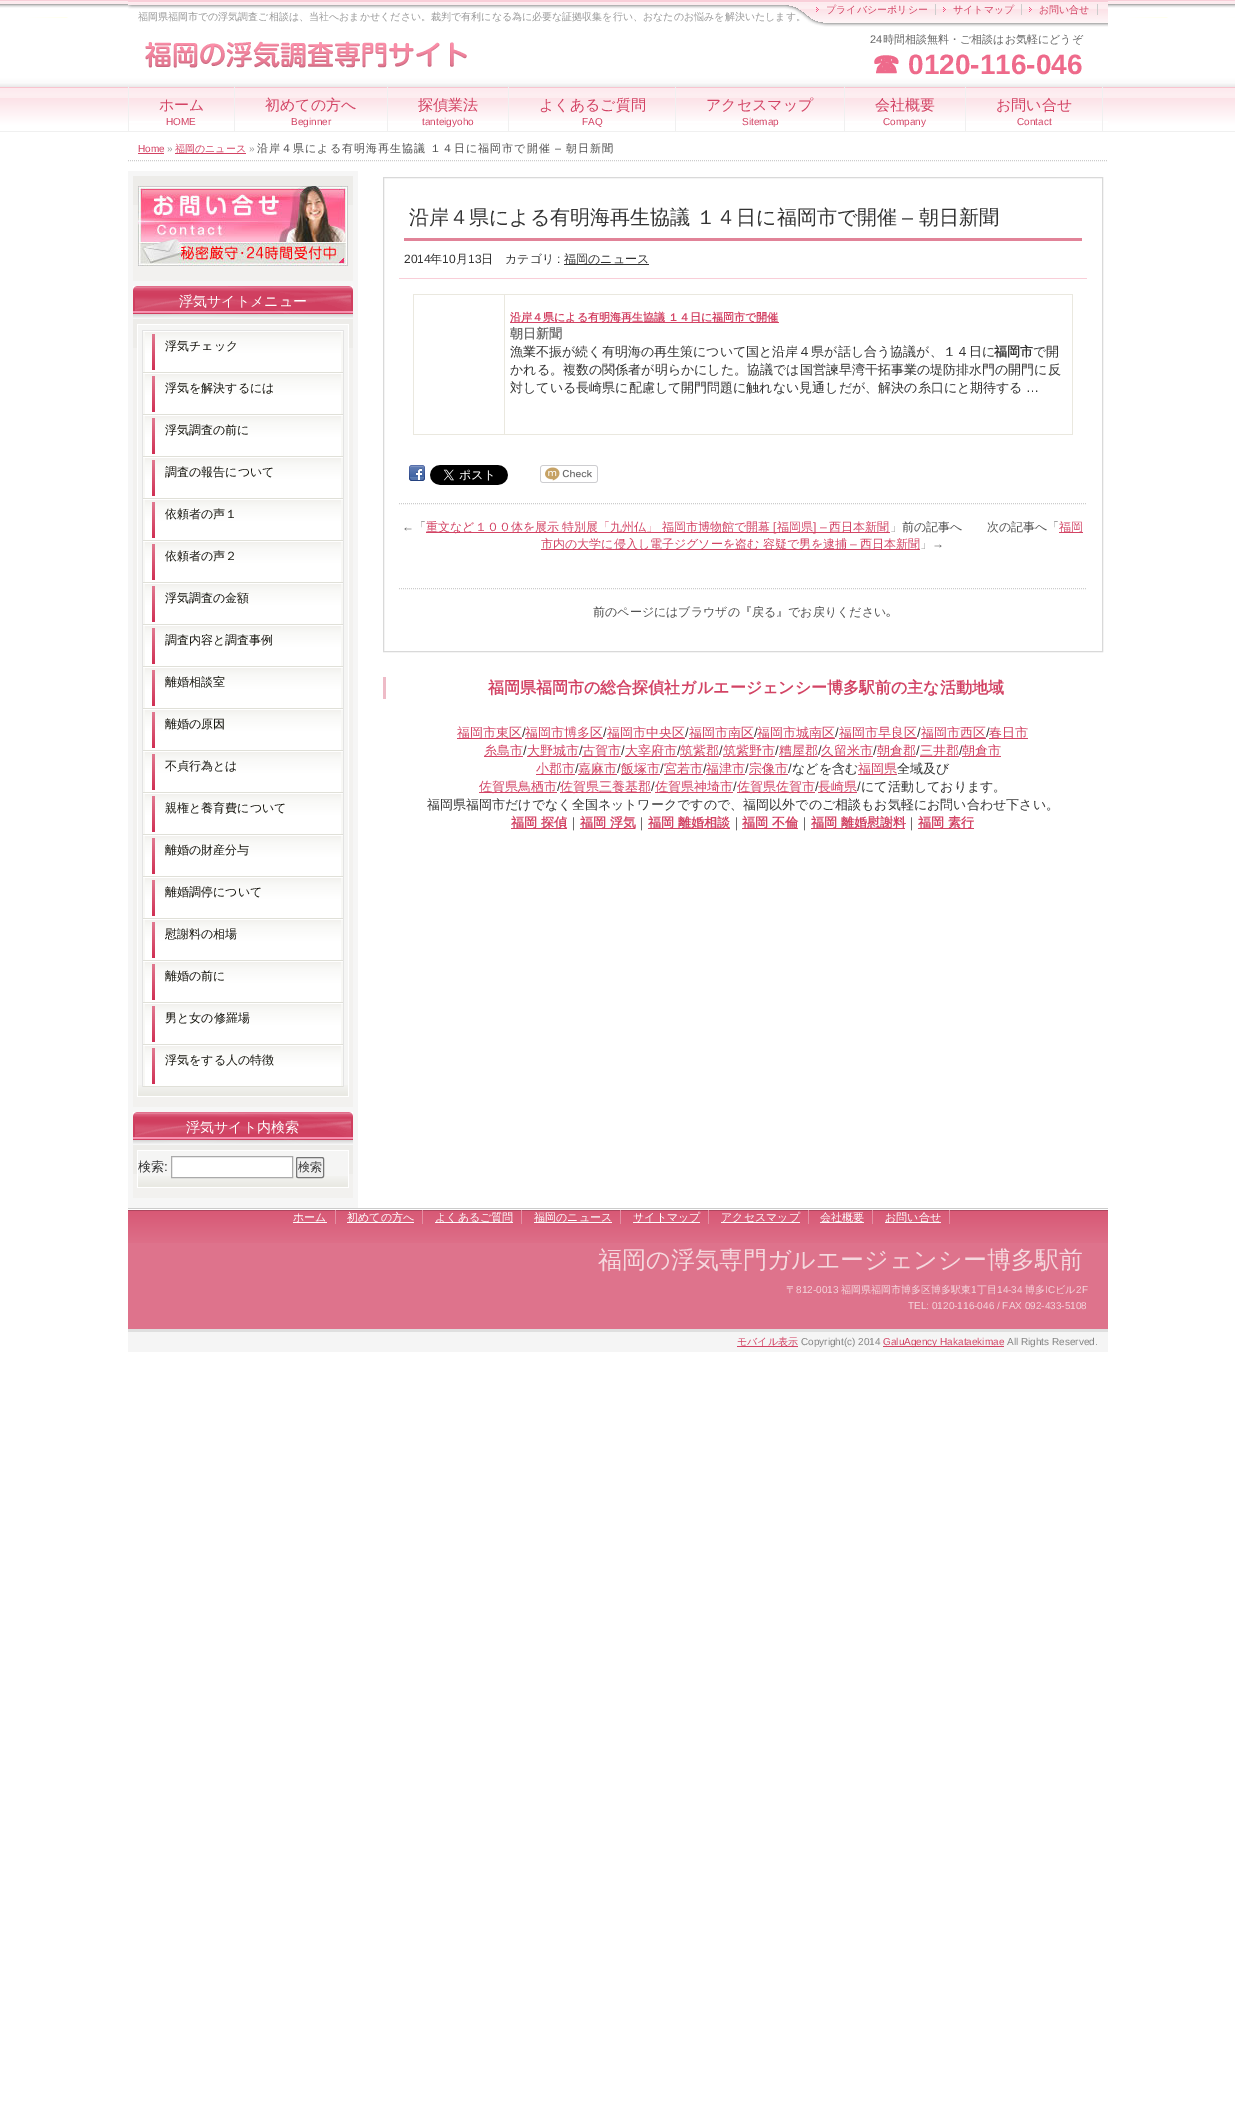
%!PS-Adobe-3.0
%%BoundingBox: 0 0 1235 2104
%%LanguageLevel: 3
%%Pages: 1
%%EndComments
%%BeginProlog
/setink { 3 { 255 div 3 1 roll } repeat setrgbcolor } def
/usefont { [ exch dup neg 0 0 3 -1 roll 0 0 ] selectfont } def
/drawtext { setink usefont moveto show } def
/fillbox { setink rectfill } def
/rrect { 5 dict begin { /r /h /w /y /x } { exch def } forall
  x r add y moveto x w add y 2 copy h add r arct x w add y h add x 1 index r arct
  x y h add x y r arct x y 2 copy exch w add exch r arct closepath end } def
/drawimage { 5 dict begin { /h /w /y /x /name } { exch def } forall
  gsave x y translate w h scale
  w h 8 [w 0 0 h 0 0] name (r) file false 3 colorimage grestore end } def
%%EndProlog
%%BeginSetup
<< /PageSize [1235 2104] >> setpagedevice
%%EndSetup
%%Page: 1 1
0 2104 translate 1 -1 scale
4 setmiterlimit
0 0 1235 2104 255 255 255 fillbox
(assets/img1.rgb) 0 0 1235 132 drawimage
(assets/img2.rgb) 123 0 990 132 drawimage
129 121 979 2 255 255 255 fillbox
(assets/img3.rgb) 128 1 980 86 drawimage
(assets/img4.rgb) 816 7 3 5 drawimage
(プライバシーポリシー) 826 13 /WenQuanYiZenHei-Medium 10 211 67 100 drawtext
935 4 1 11 204 204 204 fillbox
(assets/img4.rgb) 943 7 3 5 drawimage
(サイトマップ) 953 13 /WenQuanYiZenHei-Medium 10 211 67 100 drawtext
1021 4 1 11 204 204 204 fillbox
(assets/img4.rgb) 1029 7 3 5 drawimage
(お問い合せ) 1039 13 /WenQuanYiZenHei-Medium 10 211 67 100 drawtext
1097 4 1 11 204 204 204 fillbox
(福岡県福岡市での浮気調査ご相談は、当社へおまかせください。裁判で有利になる為に必要な証拠収集を行い、おなたのお悩みを解決いたします。) 138 20 /WenQuanYiZenHei-Medium 10 153 153 153 drawtext
(assets/img5.rgb) 145 41 322 27 drawimage
(24) 870 43 /LiberationSans-Regular 11 102 102 102 drawtext
(時間相談無料・ご相談はお気軽にどうぞ) 883 43 /WenQuanYiZenHei-Medium 11 102 102 102 drawtext
(☎) 872 74 /WenQuanYiZenHei-Bold 28 238 106 139 drawtext
(0120-116-046) 908 74 /LiberationSans-Bold 28 238 106 139 drawtext
(assets/img6.rgb) 129 87 979 34 drawimage
128 87 1 44 240 240 240 fillbox
234 87 1 44 240 240 240 fillbox
(ホーム) 159 110 /WenQuanYiZenHei-Medium 15 211 67 100 drawtext
(HOME) 166 125 /LiberationSans-Regular 10 211 67 100 drawtext
387 87 1 44 240 240 240 fillbox
(初めての方へ) 265 110 /WenQuanYiZenHei-Medium 15 211 67 100 drawtext
(Beginner) 291 125 /LiberationSans-Regular 10 211 67 100 drawtext
508 87 1 44 240 240 240 fillbox
(探偵業法) 418 110 /WenQuanYiZenHei-Medium 15 211 67 100 drawtext
(tanteigyoho) 422 125 /LiberationSans-Regular 10 211 67 100 drawtext
675 87 1 44 240 240 240 fillbox
(よくあるご質問) 539 110 /WenQuanYiZenHei-Medium 15 211 67 100 drawtext
(FAQ) 582 125 /LiberationSans-Regular 10 211 67 100 drawtext
844 87 1 44 240 240 240 fillbox
(アクセスマップ) 706 110 /WenQuanYiZenHei-Medium 15 211 67 100 drawtext
(Sitemap) 742 125 /LiberationSans-Regular 10 211 67 100 drawtext
965 87 1 44 240 240 240 fillbox
(会社概要) 875 110 /WenQuanYiZenHei-Medium 15 211 67 100 drawtext
(Company) 883 125 /LiberationSans-Regular 10 211 67 100 drawtext
1102 87 1 44 240 240 240 fillbox
(お問い合せ) 996 110 /WenQuanYiZenHei-Medium 15 211 67 100 drawtext
(Contact) 1017 125 /LiberationSans-Regular 10 211 67 100 drawtext
204 204 204 setink
[1 1] 0 setdash
128 160.5 moveto 1108 160.5 lineto stroke
(Home) 138 152 /LiberationSans-Regular 10 211 67 100 drawtext
138 153 26 1 211 67 100 fillbox
(») 167 152 /LiberationSans-Regular 10 153 153 153 drawtext
175 153 71 1 211 67 100 fillbox
(福岡のニュース) 175 152 /WenQuanYiZenHei-Medium 10 211 67 100 drawtext
(») 249 152 /LiberationSans-Regular 10 153 153 153 drawtext
/WenQuanYiZenHei-Medium 11 usefont
80 80 80 setink
257 152 moveto 1 0 (沿岸４県による有明海再生協議 １４日に福岡市で開催) ashow
/LiberationSans-Regular 11 usefont
555 152 moveto 1 0 (–) ashow
/WenQuanYiZenHei-Medium 11 usefont
566 152 moveto 1 0 (朝日新聞) ashow
128 171 230 1037 246 246 246 fillbox
133 205 220 76 242 241 239 fillbox
133 176 220 29 237 236 233 fillbox
(assets/img7.rgb) 138 186 210 80 drawimage
(assets/img8.rgb) 133 286 220 32 drawimage
(浮気サイトメニュー) 179 306 /WenQuanYiZenHei-Medium 14 255 255 255 drawtext
133 348 220 759 242 241 239 fillbox
133 319 220 29 237 236 233 fillbox
138 325 210 760 245 245 244 fillbox
(assets/img9.rgb) 138 1085 210 12 drawimage
137 324 212 1 255 255 255 fillbox
348 324 1 773 255 255 255 fillbox
137 324 1 773 255 255 255 fillbox
142 330 202 1 227 227 227 fillbox
343 330 1 757 227 227 227 fillbox
142 330 1 757 227 227 227 fillbox
143 332 200 40 248 248 245 fillbox
(assets/img10.rgb) 145 332 196 40 drawimage
143 331 200 1 255 255 255 fillbox
143 372 200 1 224 224 216 fillbox
(浮気チェック) 165 350 /WenQuanYiZenHei-Medium 12 20 19 12 drawtext
143 374 200 40 248 248 245 fillbox
(assets/img10.rgb) 145 374 196 40 drawimage
143 373 200 1 255 255 255 fillbox
143 414 200 1 224 224 216 fillbox
(浮気を解決するには) 165 392 /WenQuanYiZenHei-Medium 12 20 19 12 drawtext
143 416 200 40 248 248 245 fillbox
(assets/img10.rgb) 145 416 196 40 drawimage
143 415 200 1 255 255 255 fillbox
143 456 200 1 224 224 216 fillbox
(浮気調査の前に) 165 434 /WenQuanYiZenHei-Medium 12 20 19 12 drawtext
143 458 200 40 248 248 245 fillbox
(assets/img10.rgb) 145 458 196 40 drawimage
143 457 200 1 255 255 255 fillbox
143 498 200 1 224 224 216 fillbox
(調査の報告について) 165 476 /WenQuanYiZenHei-Medium 12 20 19 12 drawtext
143 500 200 40 248 248 245 fillbox
(assets/img10.rgb) 145 500 196 40 drawimage
143 499 200 1 255 255 255 fillbox
143 540 200 1 224 224 216 fillbox
(依頼者の声１) 165 518 /WenQuanYiZenHei-Medium 12 20 19 12 drawtext
143 542 200 40 248 248 245 fillbox
(assets/img10.rgb) 145 542 196 40 drawimage
143 541 200 1 255 255 255 fillbox
143 582 200 1 224 224 216 fillbox
(依頼者の声２) 165 560 /WenQuanYiZenHei-Medium 12 20 19 12 drawtext
143 584 200 40 248 248 245 fillbox
(assets/img10.rgb) 145 584 196 40 drawimage
143 583 200 1 255 255 255 fillbox
143 624 200 1 224 224 216 fillbox
(浮気調査の金額) 165 602 /WenQuanYiZenHei-Medium 12 20 19 12 drawtext
143 626 200 40 248 248 245 fillbox
(assets/img10.rgb) 145 626 196 40 drawimage
143 625 200 1 255 255 255 fillbox
143 666 200 1 224 224 216 fillbox
(調査内容と調査事例) 165 644 /WenQuanYiZenHei-Medium 12 20 19 12 drawtext
143 668 200 40 248 248 245 fillbox
(assets/img10.rgb) 145 668 196 40 drawimage
143 667 200 1 255 255 255 fillbox
143 708 200 1 224 224 216 fillbox
(離婚相談室) 165 686 /WenQuanYiZenHei-Medium 12 20 19 12 drawtext
143 710 200 40 248 248 245 fillbox
(assets/img10.rgb) 145 710 196 40 drawimage
143 709 200 1 255 255 255 fillbox
143 750 200 1 224 224 216 fillbox
(離婚の原因) 165 728 /WenQuanYiZenHei-Medium 12 20 19 12 drawtext
143 752 200 40 248 248 245 fillbox
(assets/img10.rgb) 145 752 196 40 drawimage
143 751 200 1 255 255 255 fillbox
143 792 200 1 224 224 216 fillbox
(不貞行為とは) 165 770 /WenQuanYiZenHei-Medium 12 20 19 12 drawtext
143 794 200 40 248 248 245 fillbox
(assets/img10.rgb) 145 794 196 40 drawimage
143 793 200 1 255 255 255 fillbox
143 834 200 1 224 224 216 fillbox
(親権と養育費について) 165 812 /WenQuanYiZenHei-Medium 12 20 19 12 drawtext
143 836 200 40 248 248 245 fillbox
(assets/img10.rgb) 145 836 196 40 drawimage
143 835 200 1 255 255 255 fillbox
143 876 200 1 224 224 216 fillbox
(離婚の財産分与) 165 854 /WenQuanYiZenHei-Medium 12 20 19 12 drawtext
143 878 200 40 248 248 245 fillbox
(assets/img10.rgb) 145 878 196 40 drawimage
143 877 200 1 255 255 255 fillbox
143 918 200 1 224 224 216 fillbox
(離婚調停について) 165 896 /WenQuanYiZenHei-Medium 12 20 19 12 drawtext
143 920 200 40 248 248 245 fillbox
(assets/img10.rgb) 145 920 196 40 drawimage
143 919 200 1 255 255 255 fillbox
143 960 200 1 224 224 216 fillbox
(慰謝料の相場) 165 938 /WenQuanYiZenHei-Medium 12 20 19 12 drawtext
143 962 200 40 248 248 245 fillbox
(assets/img10.rgb) 145 962 196 40 drawimage
143 961 200 1 255 255 255 fillbox
143 1002 200 1 224 224 216 fillbox
(離婚の前に) 165 980 /WenQuanYiZenHei-Medium 12 20 19 12 drawtext
143 1004 200 40 248 248 245 fillbox
(assets/img10.rgb) 145 1004 196 40 drawimage
143 1003 200 1 255 255 255 fillbox
143 1044 200 1 224 224 216 fillbox
(男と女の修羅場) 165 1022 /WenQuanYiZenHei-Medium 12 20 19 12 drawtext
143 1046 200 40 248 248 245 fillbox
(assets/img10.rgb) 145 1046 196 40 drawimage
143 1045 200 1 255 255 255 fillbox
143 1086 200 1 224 224 216 fillbox
(浮気をする人の特徴) 165 1064 /WenQuanYiZenHei-Medium 12 20 19 12 drawtext
(assets/img8.rgb) 133 1112 220 32 drawimage
(浮気サイト内検索) 186 1132 /WenQuanYiZenHei-Medium 14 255 255 255 drawtext
133 1174 220 24 242 241 239 fillbox
133 1145 220 29 237 236 233 fillbox
138 1151 210 25 245 245 244 fillbox
(assets/img9.rgb) 138 1176 210 12 drawimage
137 1150 212 1 255 255 255 fillbox
348 1150 1 38 255 255 255 fillbox
137 1150 1 38 255 255 255 fillbox
(検索) 138 1171 /WenQuanYiZenHei-Medium 13 51 51 51 drawtext
(:) 164 1171 /LiberationSans-Regular 13 51 51 51 drawtext
255 255 255 setink
171.5 1156.5 moveto 292.5 1156.5 lineto 292.5 1177.5 lineto 171.5 1177.5 lineto closepath gsave fill grestore
170 170 170 setink
[] 0 setdash
stroke
239 239 239 setink
296.5 1157.5 27 20 1.5 rrect gsave fill grestore
118 118 118 setink
stroke
(検索) 298 1171 /WenQuanYiZenHei-Medium 12 51 51 51 drawtext
217 217 217 setink
383.5 177.5 719 474 rectstroke
399 278 688 1 249 206 216 fillbox
404 238 678 3 225 131 152 fillbox
(沿岸４県による有明海再生協議 １４日に福岡市で開催) 409 224 /WenQuanYiZenHei-Medium 20 51 51 51 drawtext
(–) 902 224 /LiberationSans-Regular 20 51 51 51 drawtext
(朝日新聞) 919 224 /WenQuanYiZenHei-Medium 20 51 51 51 drawtext
(2014) 404 263 /LiberationSans-Regular 12 51 51 51 drawtext
(年) 430 263 /WenQuanYiZenHei-Medium 12 51 51 51 drawtext
(10) 442 263 /LiberationSans-Regular 12 51 51 51 drawtext
(月) 456 263 /WenQuanYiZenHei-Medium 12 51 51 51 drawtext
(13) 468 263 /LiberationSans-Regular 12 51 51 51 drawtext
(日　カテゴリ) 481 263 /WenQuanYiZenHei-Medium 12 51 51 51 drawtext
(:) 557 263 /LiberationSans-Regular 12 51 51 51 drawtext
564 264 85 1 51 51 51 fillbox
(福岡のニュース) 564 263 /WenQuanYiZenHei-Medium 12 51 51 51 drawtext
504 294 569 1 234 232 223 fillbox
1072 294 1 141 234 232 223 fillbox
504 434 569 1 234 232 223 fillbox
504 294 1 141 234 232 223 fillbox
413 294 92 1 234 232 223 fillbox
413 434 92 1 234 232 223 fillbox
413 294 1 141 234 232 223 fillbox
510 322 269 1 211 67 100 fillbox
(沿岸４県による有明海再生協議 １４日に) 510 321 /WenQuanYiZenHei-Bold 11 211 67 100 drawtext
(福岡市で開催) 712 321 /WenQuanYiZenHei-Bold 11 211 67 100 drawtext
(朝日新聞) 510 338 /WenQuanYiZenHei-Bold 13 111 111 111 drawtext
(漁業不振が続く有明海の再生策について国と沿岸４県が話し合う協議が、１４日に) 510 356 /WenQuanYiZenHei-Medium 13 51 51 51 drawtext
(福岡市) 994 356 /WenQuanYiZenHei-Bold 13 51 51 51 drawtext
(で開) 1033 356 /WenQuanYiZenHei-Medium 13 51 51 51 drawtext
(かれる。複数の関係者が明らかにした。協議では国営諫早湾干拓事業の堤防排水門の開門に反) 510 374 /WenQuanYiZenHei-Medium 13 51 51 51 drawtext
(対している長崎県に配慮して開門問題に触れない見通しだが、解決の糸口にと期待する) 510 392 /WenQuanYiZenHei-Medium 13 51 51 51 drawtext
(…) 1026 392 /LiberationSans-Regular 13 51 51 51 drawtext
(assets/img11.rgb) 409 465 16 16 drawimage
(assets/img12.rgb) 430 465 78 20 drawimage
(assets/img13.rgb) 540 465 58 18 drawimage
204 204 204 setink
[1 1] 0 setdash
399 503.5 moveto 1087 503.5 lineto stroke
(←) 402 531 /LiberationSans-Regular 12 80 80 80 drawtext
(「) 414 531 /WenQuanYiZenHei-Medium 12 80 80 80 drawtext
426 532 464 1 211 67 100 fillbox
(重文など１００体を展示 特別展「九州仏」 福岡市博物館で開幕) 426 531 /WenQuanYiZenHei-Medium 12 211 67 100 drawtext
([) 773 531 /LiberationSans-Regular 12 211 67 100 drawtext
(福岡県) 777 531 /WenQuanYiZenHei-Medium 12 211 67 100 drawtext
(] –) 813 531 /LiberationSans-Regular 12 211 67 100 drawtext
(西日本新聞) 829 531 /WenQuanYiZenHei-Medium 12 211 67 100 drawtext
(」前の記事へ　　次の記事へ「) 890 531 /WenQuanYiZenHei-Medium 12 80 80 80 drawtext
1059 532 24 1 211 67 100 fillbox
(福岡) 1059 531 /WenQuanYiZenHei-Medium 12 211 67 100 drawtext
541 549 379 1 211 67 100 fillbox
(市内の大学に侵入し電子ジグソーを盗む 容疑で男を逮捕) 541 548 /WenQuanYiZenHei-Medium 12 211 67 100 drawtext
(–) 850 548 /LiberationSans-Regular 12 211 67 100 drawtext
(西日本新聞) 860 548 /WenQuanYiZenHei-Medium 12 211 67 100 drawtext
(」) 920 548 /WenQuanYiZenHei-Medium 12 80 80 80 drawtext
(→) 932 548 /LiberationSans-Regular 12 80 80 80 drawtext
204 204 204 setink
399 588.5 moveto 1087 588.5 lineto stroke
(前のページにはブラウザの『戻る』でお戻りください) 593 616 /WenQuanYiZenHei-Medium 12 80 80 80 drawtext
(｡) 886 616 /IPAPGothic-Regular 12 80 80 80 drawtext
383 677 3 22 238 187 199 fillbox
(福岡県福岡市の総合探偵社ガルエージェンシー博多駅前の主な活動地域) 488 693 /WenQuanYiZenHei-Bold 16 211 67 100 drawtext
457 738 65 1 211 67 100 fillbox
(福岡市東区) 457 737 /WenQuanYiZenHei-Medium 13 211 67 100 drawtext
(/) 522 737 /LiberationSans-Regular 13 51 51 51 drawtext
525 738 78 1 211 67 100 fillbox
(福岡市博多区) 525 737 /WenQuanYiZenHei-Medium 13 211 67 100 drawtext
(/) 603 737 /LiberationSans-Regular 13 51 51 51 drawtext
607 738 78 1 211 67 100 fillbox
(福岡市中央区) 607 737 /WenQuanYiZenHei-Medium 13 211 67 100 drawtext
(/) 685 737 /LiberationSans-Regular 13 51 51 51 drawtext
689 738 65 1 211 67 100 fillbox
(福岡市南区) 689 737 /WenQuanYiZenHei-Medium 13 211 67 100 drawtext
(/) 754 737 /LiberationSans-Regular 13 51 51 51 drawtext
757 738 78 1 211 67 100 fillbox
(福岡市城南区) 757 737 /WenQuanYiZenHei-Medium 13 211 67 100 drawtext
(/) 835 737 /LiberationSans-Regular 13 51 51 51 drawtext
839 738 78 1 211 67 100 fillbox
(福岡市早良区) 839 737 /WenQuanYiZenHei-Medium 13 211 67 100 drawtext
(/) 917 737 /LiberationSans-Regular 13 51 51 51 drawtext
921 738 65 1 211 67 100 fillbox
(福岡市西区) 921 737 /WenQuanYiZenHei-Medium 13 211 67 100 drawtext
(/) 986 737 /LiberationSans-Regular 13 51 51 51 drawtext
989 738 39 1 211 67 100 fillbox
(春日市) 989 737 /WenQuanYiZenHei-Medium 13 211 67 100 drawtext
484 756 39 1 211 67 100 fillbox
(糸島市) 484 755 /WenQuanYiZenHei-Medium 13 211 67 100 drawtext
(/) 523 755 /LiberationSans-Regular 13 51 51 51 drawtext
527 756 52 1 211 67 100 fillbox
(大野城市) 527 755 /WenQuanYiZenHei-Medium 13 211 67 100 drawtext
(/) 579 755 /LiberationSans-Regular 13 51 51 51 drawtext
582 756 39 1 211 67 100 fillbox
(古賀市) 582 755 /WenQuanYiZenHei-Medium 13 211 67 100 drawtext
(/) 621 755 /LiberationSans-Regular 13 51 51 51 drawtext
625 756 52 1 211 67 100 fillbox
(大宰府市) 625 755 /WenQuanYiZenHei-Medium 13 211 67 100 drawtext
(/) 677 755 /LiberationSans-Regular 13 51 51 51 drawtext
680 756 39 1 211 67 100 fillbox
(筑紫郡) 680 755 /WenQuanYiZenHei-Medium 13 211 67 100 drawtext
(/) 719 755 /LiberationSans-Regular 13 51 51 51 drawtext
723 756 52 1 211 67 100 fillbox
(筑紫野市) 723 755 /WenQuanYiZenHei-Medium 13 211 67 100 drawtext
(/) 775 755 /LiberationSans-Regular 13 51 51 51 drawtext
779 756 39 1 211 67 100 fillbox
(糟屋郡) 779 755 /WenQuanYiZenHei-Medium 13 211 67 100 drawtext
(/) 818 755 /LiberationSans-Regular 13 51 51 51 drawtext
821 756 52 1 211 67 100 fillbox
(久留米市) 821 755 /WenQuanYiZenHei-Medium 13 211 67 100 drawtext
(/) 873 755 /LiberationSans-Regular 13 51 51 51 drawtext
877 756 39 1 211 67 100 fillbox
(朝倉郡) 877 755 /WenQuanYiZenHei-Medium 13 211 67 100 drawtext
(/) 916 755 /LiberationSans-Regular 13 51 51 51 drawtext
920 756 39 1 211 67 100 fillbox
(三井郡) 920 755 /WenQuanYiZenHei-Medium 13 211 67 100 drawtext
(/) 959 755 /LiberationSans-Regular 13 51 51 51 drawtext
962 756 39 1 211 67 100 fillbox
(朝倉市) 962 755 /WenQuanYiZenHei-Medium 13 211 67 100 drawtext
536 774 39 1 211 67 100 fillbox
(小郡市) 536 773 /WenQuanYiZenHei-Medium 13 211 67 100 drawtext
(/) 575 773 /LiberationSans-Regular 13 51 51 51 drawtext
578 774 39 1 211 67 100 fillbox
(嘉麻市) 578 773 /WenQuanYiZenHei-Medium 13 211 67 100 drawtext
(/) 617 773 /LiberationSans-Regular 13 51 51 51 drawtext
621 774 39 1 211 67 100 fillbox
(飯塚市) 621 773 /WenQuanYiZenHei-Medium 13 211 67 100 drawtext
(/) 660 773 /LiberationSans-Regular 13 51 51 51 drawtext
664 774 39 1 211 67 100 fillbox
(宮若市) 664 773 /WenQuanYiZenHei-Medium 13 211 67 100 drawtext
(/) 703 773 /LiberationSans-Regular 13 51 51 51 drawtext
706 774 39 1 211 67 100 fillbox
(福津市) 706 773 /WenQuanYiZenHei-Medium 13 211 67 100 drawtext
(/) 745 773 /LiberationSans-Regular 13 51 51 51 drawtext
749 774 39 1 211 67 100 fillbox
(宗像市) 749 773 /WenQuanYiZenHei-Medium 13 211 67 100 drawtext
(/) 788 773 /LiberationSans-Regular 13 51 51 51 drawtext
(などを含む) 792 773 /WenQuanYiZenHei-Medium 13 51 51 51 drawtext
858 774 39 1 211 67 100 fillbox
(福岡県) 858 773 /WenQuanYiZenHei-Medium 13 211 67 100 drawtext
(全域及び) 897 773 /WenQuanYiZenHei-Medium 13 51 51 51 drawtext
479 792 78 1 211 67 100 fillbox
(佐賀県鳥栖市) 479 791 /WenQuanYiZenHei-Medium 13 211 67 100 drawtext
(/) 557 791 /LiberationSans-Regular 13 51 51 51 drawtext
560 792 91 1 211 67 100 fillbox
(佐賀県三養基郡) 560 791 /WenQuanYiZenHei-Medium 13 211 67 100 drawtext
(/) 651 791 /LiberationSans-Regular 13 51 51 51 drawtext
655 792 78 1 211 67 100 fillbox
(佐賀県神埼市) 655 791 /WenQuanYiZenHei-Medium 13 211 67 100 drawtext
(/) 733 791 /LiberationSans-Regular 13 51 51 51 drawtext
737 792 78 1 211 67 100 fillbox
(佐賀県佐賀市) 737 791 /WenQuanYiZenHei-Medium 13 211 67 100 drawtext
(/) 815 791 /LiberationSans-Regular 13 51 51 51 drawtext
818 792 39 1 211 67 100 fillbox
(長崎県) 818 791 /WenQuanYiZenHei-Medium 13 211 67 100 drawtext
(/) 857 791 /LiberationSans-Regular 13 51 51 51 drawtext
(にて活動しております。) 861 791 /WenQuanYiZenHei-Medium 13 51 51 51 drawtext
(福岡県福岡市だけでなく全国ネットワークですので、福岡以外でのご相談もお気軽にお問い合わせ下さい。) 427 809 /WenQuanYiZenHei-Medium 13 51 51 51 drawtext
511 828 56 1 211 67 100 fillbox
(福岡 探偵) 511 827 /WenQuanYiZenHei-Bold 13 211 67 100 drawtext
(｜) 567 827 /WenQuanYiZenHei-Medium 13 51 51 51 drawtext
580 828 55 1 211 67 100 fillbox
(福岡 浮気) 580 827 /WenQuanYiZenHei-Bold 13 211 67 100 drawtext
(｜) 635 827 /WenQuanYiZenHei-Medium 13 51 51 51 drawtext
648 828 82 1 211 67 100 fillbox
(福岡 離婚相談) 648 827 /WenQuanYiZenHei-Bold 13 211 67 100 drawtext
(｜) 730 827 /WenQuanYiZenHei-Medium 13 51 51 51 drawtext
742 828 56 1 211 67 100 fillbox
(福岡 不倫) 742 827 /WenQuanYiZenHei-Bold 13 211 67 100 drawtext
(｜) 798 827 /WenQuanYiZenHei-Medium 13 51 51 51 drawtext
811 828 94 1 211 67 100 fillbox
(福岡 離婚慰謝料) 811 827 /WenQuanYiZenHei-Bold 13 211 67 100 drawtext
(｜) 905 827 /WenQuanYiZenHei-Medium 13 51 51 51 drawtext
918 828 56 1 211 67 100 fillbox
(福岡 素行) 918 827 /WenQuanYiZenHei-Bold 13 211 67 100 drawtext
128 1243 980 86 222 115 140 fillbox
(assets/img14.rgb) 128 1209 980 34 drawimage
128 1208 980 1 204 204 204 fillbox
293 1222 34 1 255 255 255 fillbox
(ホーム) 293 1221 /WenQuanYiZenHei-Medium 11 255 255 255 drawtext
335 1210 1 14 228 143 163 fillbox
347 1222 67 1 255 255 255 fillbox
(初めての方へ) 347 1221 /WenQuanYiZenHei-Medium 11 255 255 255 drawtext
422 1210 1 14 228 143 163 fillbox
435 1222 78 1 255 255 255 fillbox
(よくあるご質問) 435 1221 /WenQuanYiZenHei-Medium 11 255 255 255 drawtext
521 1210 1 14 228 143 163 fillbox
534 1222 78 1 255 255 255 fillbox
(福岡のニュース) 534 1221 /WenQuanYiZenHei-Medium 11 255 255 255 drawtext
620 1210 1 14 228 143 163 fillbox
633 1222 67 1 255 255 255 fillbox
(サイトマップ) 633 1221 /WenQuanYiZenHei-Medium 11 255 255 255 drawtext
708 1210 1 14 228 143 163 fillbox
721 1222 79 1 255 255 255 fillbox
(アクセスマップ) 721 1221 /WenQuanYiZenHei-Medium 11 255 255 255 drawtext
808 1210 1 14 228 143 163 fillbox
820 1222 44 1 255 255 255 fillbox
(会社概要) 820 1221 /WenQuanYiZenHei-Medium 11 255 255 255 drawtext
872 1210 1 14 228 143 163 fillbox
885 1222 56 1 255 255 255 fillbox
(お問い合せ) 885 1221 /WenQuanYiZenHei-Medium 11 255 255 255 drawtext
949 1210 1 14 228 143 163 fillbox
(福岡の浮気専門ガルエージェンシー博多駅前) 598 1268 /WenQuanYiZenHei-Medium 24 245 216 222 drawtext
(〒) 786 1293 /WenQuanYiZenHei-Medium 10 245 216 222 drawtext
(812-0013) 796 1293 /LiberationSans-Regular 10 245 216 222 drawtext
(福岡県福岡市博多区博多駅東) 841 1293 /WenQuanYiZenHei-Medium 10 245 216 222 drawtext
(1) 971 1293 /LiberationSans-Regular 10 245 216 222 drawtext
(丁目) 977 1293 /WenQuanYiZenHei-Medium 10 245 216 222 drawtext
(14-34) 997 1293 /LiberationSans-Regular 10 245 216 222 drawtext
(博多) 1025 1293 /WenQuanYiZenHei-Medium 10 245 216 222 drawtext
(IC) 1045 1293 /LiberationSans-Regular 10 245 216 222 drawtext
(ビル) 1055 1293 /WenQuanYiZenHei-Medium 10 245 216 222 drawtext
(2F) 1076 1293 /LiberationSans-Regular 10 245 216 222 drawtext
(TEL: 0120-116-046 / FAX 092-433-5108) 908 1309 /LiberationSans-Regular 10 245 216 222 drawtext
128 1332 980 20 245 245 245 fillbox
128 1329 980 3 223 223 223 fillbox
737 1346 61 1 211 67 100 fillbox
(モバイル表示) 737 1345 /WenQuanYiZenHei-Medium 10 211 67 100 drawtext
(Copyright\(c\) 2014) 801 1345 /LiberationSans-Regular 10 131 131 131 drawtext
883 1346 121 1 211 67 100 fillbox
(GaluAgency Hakataekimae) 883 1345 /LiberationSans-Regular 10 211 67 100 drawtext
(All Rights Reserved.) 1007 1345 /LiberationSans-Regular 10 131 131 131 drawtext
showpage
%%EOF
